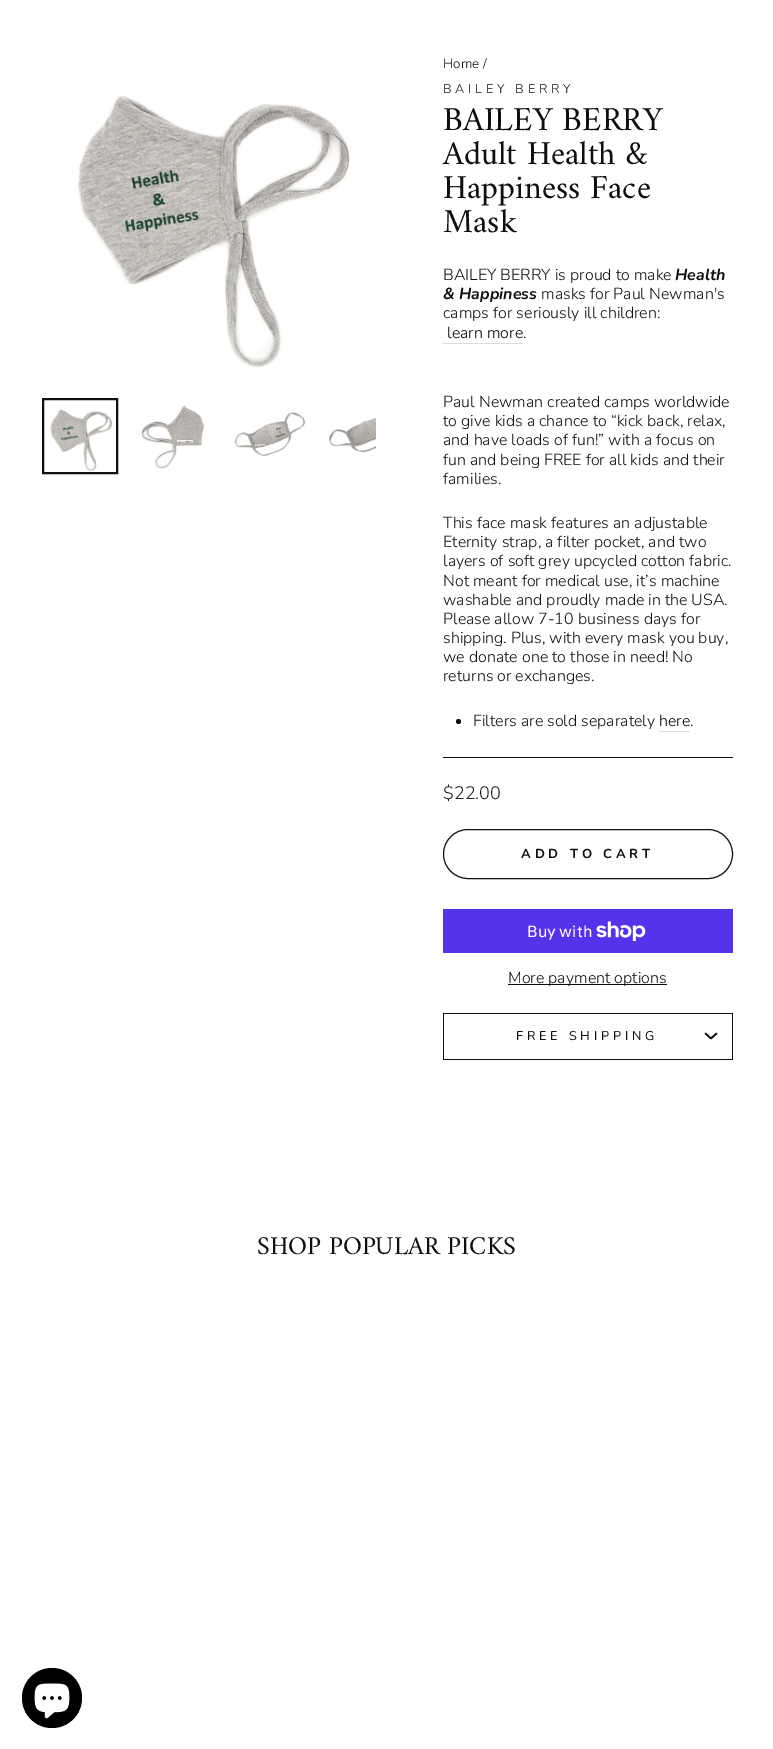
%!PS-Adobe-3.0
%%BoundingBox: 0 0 773 1749
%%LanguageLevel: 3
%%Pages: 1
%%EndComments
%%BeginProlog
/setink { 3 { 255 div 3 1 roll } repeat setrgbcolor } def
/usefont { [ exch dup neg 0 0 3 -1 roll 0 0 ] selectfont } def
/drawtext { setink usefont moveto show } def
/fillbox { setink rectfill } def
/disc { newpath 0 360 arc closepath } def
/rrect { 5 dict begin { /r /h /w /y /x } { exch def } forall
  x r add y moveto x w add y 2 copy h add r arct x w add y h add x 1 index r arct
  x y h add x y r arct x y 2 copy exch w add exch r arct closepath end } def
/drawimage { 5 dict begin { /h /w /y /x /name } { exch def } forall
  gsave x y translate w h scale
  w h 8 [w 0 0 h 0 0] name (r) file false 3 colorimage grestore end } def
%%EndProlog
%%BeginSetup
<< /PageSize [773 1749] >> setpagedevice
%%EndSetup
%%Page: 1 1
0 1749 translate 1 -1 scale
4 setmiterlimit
0 0 773 1749 255 255 255 fillbox
(assets/img1.rgb) 77 95 273 273 drawimage
(assets/img2.rgb) 50 409 63 62 drawimage
15 15 15 setink
2 setlinewidth
43 399 74 74 rectstroke
(assets/img3.rgb) 141 405 64 64 drawimage
(assets/img4.rgb) 234 412 72 45 drawimage
(assets/img5.rgb) 327 417 49 36 drawimage
(Home /) 443 68 /Nunito-Light 13.5 15 15 15 drawtext
/Nunito-Light 12.75 usefont
443 93 moveto 3.8 0 (BAILEY BERRY) ashow
(BAILEY BERRY) 443 130 /Amiri-Regular 34 15 15 15 drawtext
(Adult Health &) 443 164 /Amiri-Regular 34 15 15 15 drawtext
(Happiness Face) 443 198 /Amiri-Regular 34 15 15 15 drawtext
(Mask) 443 232 /Amiri-Regular 34 15 15 15 drawtext
(BAILEY BERRY is proud to make) 443 280 /Nunito-Light 16 15 15 15 drawtext
(Health) 675 280 /Nunito-BoldItalic 16 15 15 15 drawtext
(& Happiness) 443 299 /Nunito-BoldItalic 16 15 15 15 drawtext
(masks for Paul Newman's) 541 299 /Nunito-Light 16 15 15 15 drawtext
(camps for seriously ill children:) 443 318 /Nunito-Light 16 15 15 15 drawtext
443 343 80 1 219 219 219 fillbox
(learn more) 447 338 /Nunito-Light 16 0 0 0 drawtext
(.) 523 338 /Nunito-Light 16 15 15 15 drawtext
(Paul Newman created camps worldwide) 443 407 /Nunito-Light 16 15 15 15 drawtext
(to give kids a chance to “kick back, relax,) 443 426 /Nunito-Light 16 15 15 15 drawtext
(and have loads of fun!” with a focus on) 443 445 /Nunito-Light 16 15 15 15 drawtext
(fun and being FREE for all kids and their) 443 465 /Nunito-Light 16 15 15 15 drawtext
(families.) 443 484 /Nunito-Light 16 15 15 15 drawtext
(This face mask features an adjustable) 443 528 /Nunito-Light 16 15 15 15 drawtext
(Eternity strap, a filter pocket, and two) 443 547 /Nunito-Light 16 15 15 15 drawtext
(layers of soft grey upcycled cotton fabric.) 443 566 /Nunito-Light 16 15 15 15 drawtext
(Not meant for medical use, it’s machine) 443 586 /Nunito-Light 16 15 15 15 drawtext
(washable and proudly made in the USA.) 443 605 /Nunito-Light 16 15 15 15 drawtext
(Please allow 7-10 business days for) 443 624 /Nunito-Light 16 15 15 15 drawtext
(shipping. Plus, with every mask you buy,) 443 643 /Nunito-Light 16 15 15 15 drawtext
(we donate one to those in need! No) 443 662 /Nunito-Light 16 15 15 15 drawtext
(returns or exchanges.) 443 681 /Nunito-Light 16 15 15 15 drawtext
458.5 721.5 2.5 disc fill
(Filters are sold separately) 473 726 /Nunito-Light 16 15 15 15 drawtext
659 731 31 1 219 219 219 fillbox
(here) 659 726 /Nunito-Light 16 0 0 0 drawtext
(.) 690 726 /Nunito-Light 16 15 15 15 drawtext
443 757 290 1 15 15 15 fillbox
($22.00) 443 799 /Nunito-Light 18 28 29 29 drawtext
15 15 15 setink
1 setlinewidth
443.5 829.5 289 49 24.5 rrect stroke
/Nunito-Bold 13 usefont
521 858 moveto 3.9 0 (ADD TO CART) ashow
443 909 290 44 84 51 235 fillbox
(Buy with) 527 937 /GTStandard-Regular 16 255 255 255 drawtext
(assets/img6.rgb) 596 921 50 20 drawimage
508 984 159 1 15 15 15 fillbox
(More payment options) 508 983 /Nunito-Light 16 15 15 15 drawtext
443 1059 290 1 15 15 15 fillbox
443 1013 290 1 15 15 15 fillbox
732 1013 1 46 15 15 15 fillbox
443 1013 1 46 15 15 15 fillbox
/Nunito-Regular 12.75 usefont
516 1040 moveto 3.8 0 (FREE SHIPPING) ashow
1.7 setlinewidth
1 setlinecap
1 setlinejoin
705.5 1033.5 moveto 711 1038.5 lineto 716.5 1033.5 lineto stroke
(SHOP POPULAR PICKS) 257 1254 /Amiri-Regular 26 15 15 15 drawtext
0 0 0 setink
52 1698 30 disc fill
(assets/img7.rgb) 34 1683 36 36 drawimage
showpage
%%EOF
